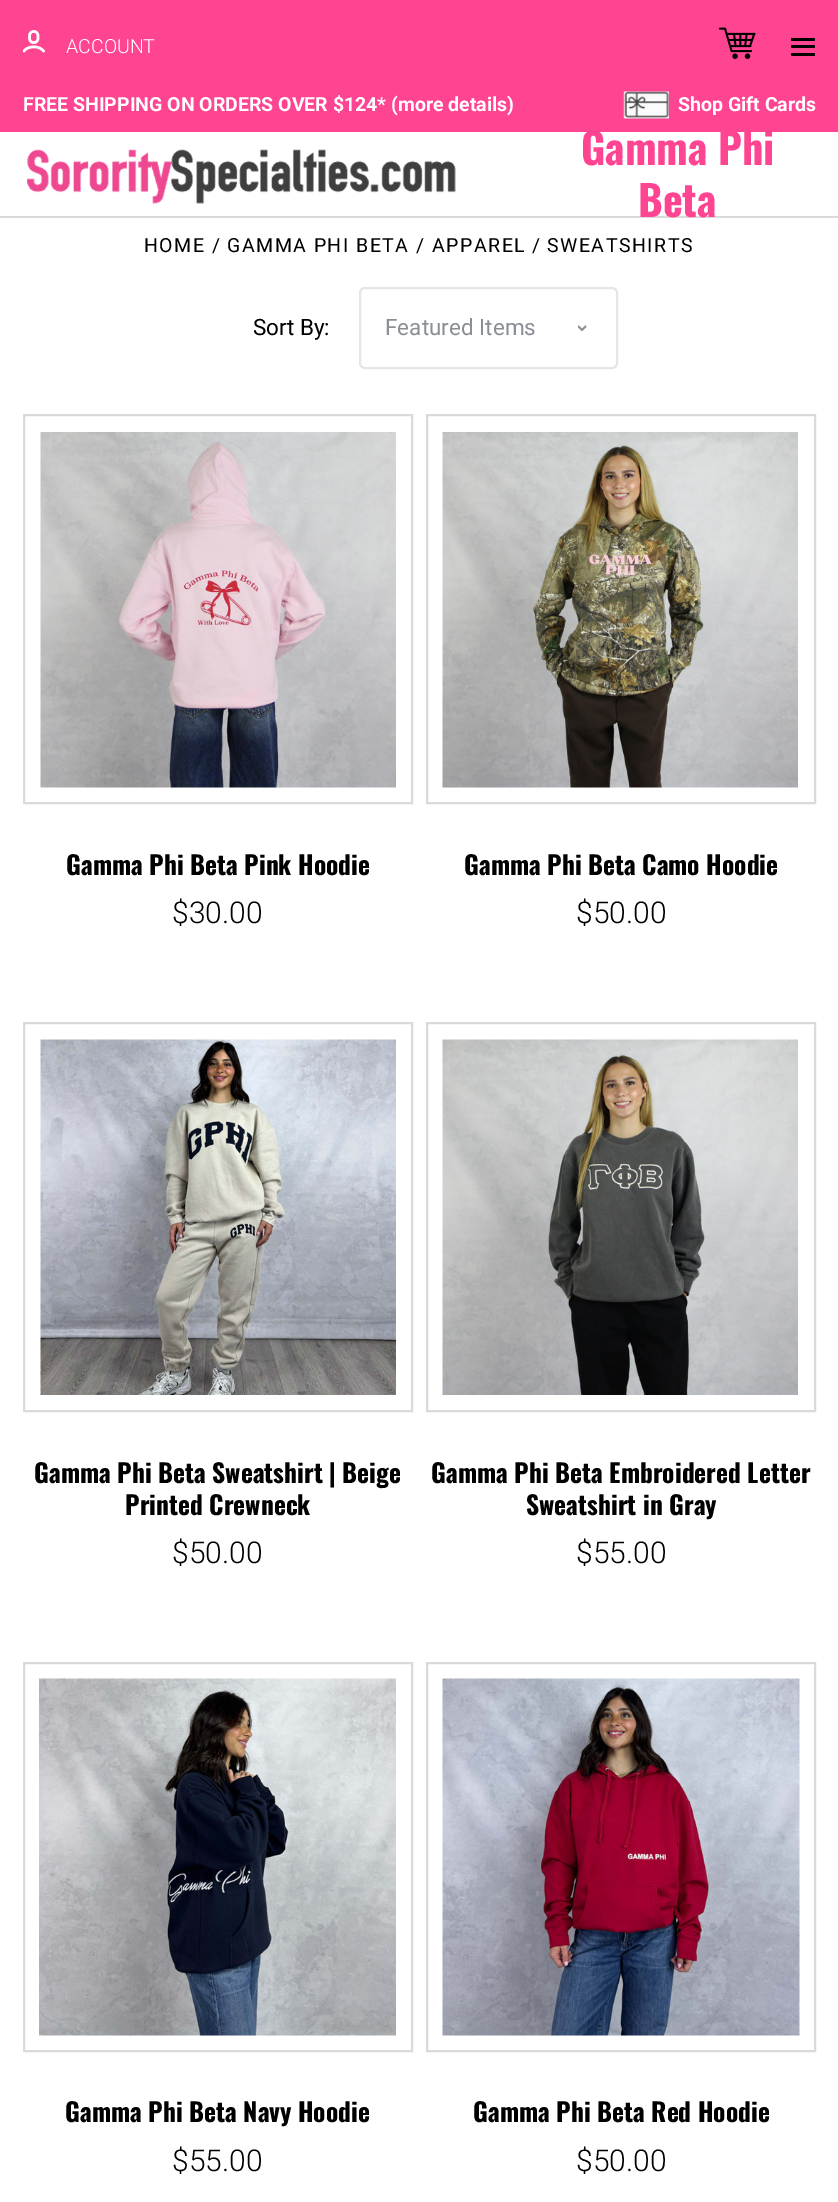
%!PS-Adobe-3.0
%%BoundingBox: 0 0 838 2202
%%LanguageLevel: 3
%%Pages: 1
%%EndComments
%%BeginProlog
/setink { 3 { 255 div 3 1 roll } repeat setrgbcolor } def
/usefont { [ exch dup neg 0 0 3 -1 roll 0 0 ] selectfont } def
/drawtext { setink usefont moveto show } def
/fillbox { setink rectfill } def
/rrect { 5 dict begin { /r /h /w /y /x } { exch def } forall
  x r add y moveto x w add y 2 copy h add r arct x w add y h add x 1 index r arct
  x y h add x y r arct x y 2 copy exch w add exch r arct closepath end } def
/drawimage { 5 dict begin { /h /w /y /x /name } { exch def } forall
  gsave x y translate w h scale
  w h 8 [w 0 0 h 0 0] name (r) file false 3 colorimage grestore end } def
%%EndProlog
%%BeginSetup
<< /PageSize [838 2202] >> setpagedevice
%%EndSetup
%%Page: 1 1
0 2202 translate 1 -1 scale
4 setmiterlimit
0 0 838 2202 255 255 255 fillbox
0 216 838 2 218 218 218 fillbox
0 0 838 132 255 69 146 fillbox
(assets/img1.rgb) 23 30 22 23 drawimage
(ACCOUNT) 66 53 /Roboto-Light 19.5 255 255 255 drawtext
(assets/img2.rgb) 719 27 37 32 drawimage
0 0 0 setink
791 45 24 3 1.5 rrect fill
791 38 24 3 1.5 rrect fill
791 53 24 3 1.5 rrect fill
(FREE SHIPPING ON ORDERS OVER $124* \(more details\)) 23 111 /Roboto-Bold 19.5 255 255 255 drawtext
(assets/img3.rgb) 623 91 46 28 drawimage
(Shop Gift Cards) 678 111 /Roboto-Bold 19.5 255 255 255 drawtext
(assets/img4.rgb) 27 149 429 55 drawimage
(Gamma Phi) 581 165 /Oswald-Bold 42 255 69 146 drawtext
(Beta) 638 217 /Oswald-Bold 42 255 69 146 drawtext
/Roboto-Regular 19.5 usefont
0 0 0 setink
144 252 moveto 1.5 0 (HOME) ashow
212 252 moveto 1.5 0 (/) ashow
227 252 moveto 1.5 0 (GAMMA PHI BETA) ashow
416 252 moveto 1.5 0 (/) ashow
432 252 moveto 1.5 0 (APPAREL) ashow
532 252 moveto 1.5 0 (/) ashow
547 252 moveto 1.5 0 (SWEATSHIRTS) ashow
(Sort By:) 253 335 /Roboto-Regular 22.5 0 0 0 drawtext
230 230 230 setink
2 setlinewidth
360 288 257 80 5 rrect stroke
(Featured Items) 385 335 /Roboto-Regular 22.5 137 143 148 drawtext
(assets/img5.rgb) 578 325 9 6 drawimage
218 218 218 setink
24 415 388 388 rectstroke
(assets/img6.rgb) 40 432 356 356 drawimage
(Gamma Phi Beta Pink Hoodie) 66 875 /Oswald-Bold 25.5 0 0 0 drawtext
($30.00) 172 923 /Roboto-Light 30 0 0 0 drawtext
218 218 218 setink
427 415 388 388 rectstroke
(assets/img7.rgb) 442 432 356 356 drawimage
(Gamma Phi Beta Camo Hoodie) 464 875 /Oswald-Bold 25.5 0 0 0 drawtext
($50.00) 576 923 /Roboto-Light 30 0 0 0 drawtext
218 218 218 setink
24 1023 388 388 rectstroke
(assets/img8.rgb) 40 1039 356 356 drawimage
(Gamma Phi Beta Sweatshirt | Beige) 34 1483 /Oswald-Bold 25.5 0 0 0 drawtext
(Printed Crewneck) 125 1515 /Oswald-Bold 25.5 0 0 0 drawtext
($50.00) 172 1563 /Roboto-Light 30 0 0 0 drawtext
218 218 218 setink
427 1023 388 388 rectstroke
(assets/img9.rgb) 442 1039 356 356 drawimage
(Gamma Phi Beta Embroidered Letter) 431 1483 /Oswald-Bold 25.5 0 0 0 drawtext
(Sweatshirt in Gray) 526 1515 /Oswald-Bold 25.5 0 0 0 drawtext
($55.00) 576 1563 /Roboto-Light 30 0 0 0 drawtext
218 218 218 setink
24 1663 388 388 rectstroke
(assets/img10.rgb) 39 1678 357 358 drawimage
(Gamma Phi Beta Navy Hoodie) 65 2122 /Oswald-Bold 25.5 0 0 0 drawtext
($55.00) 172 2171 /Roboto-Light 30 0 0 0 drawtext
218 218 218 setink
427 1663 388 388 rectstroke
(assets/img11.rgb) 442 1678 358 358 drawimage
(Gamma Phi Beta Red Hoodie) 473 2122 /Oswald-Bold 25.5 0 0 0 drawtext
($50.00) 576 2171 /Roboto-Light 30 0 0 0 drawtext
showpage
%%EOF
